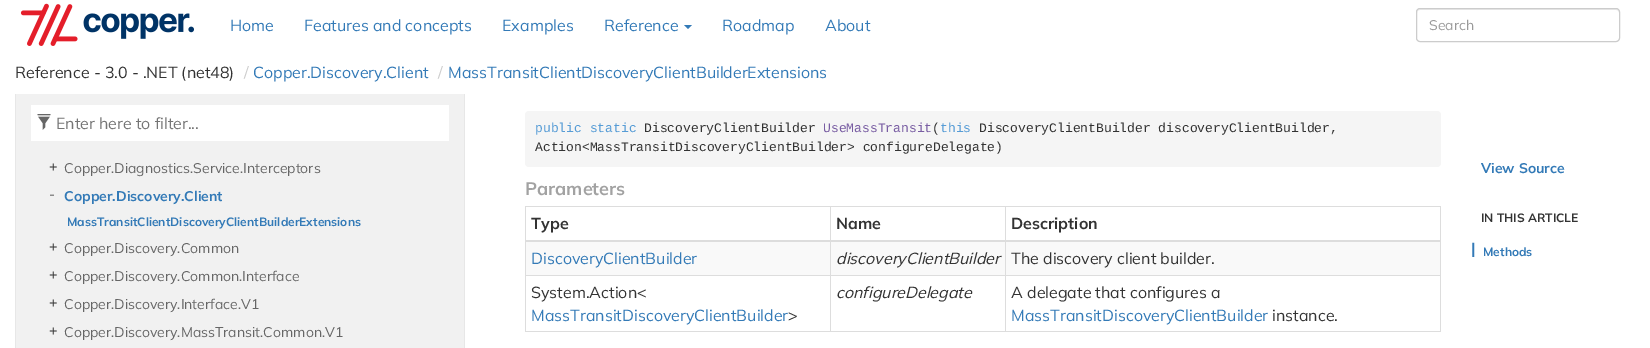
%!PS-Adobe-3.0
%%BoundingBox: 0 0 1650 348
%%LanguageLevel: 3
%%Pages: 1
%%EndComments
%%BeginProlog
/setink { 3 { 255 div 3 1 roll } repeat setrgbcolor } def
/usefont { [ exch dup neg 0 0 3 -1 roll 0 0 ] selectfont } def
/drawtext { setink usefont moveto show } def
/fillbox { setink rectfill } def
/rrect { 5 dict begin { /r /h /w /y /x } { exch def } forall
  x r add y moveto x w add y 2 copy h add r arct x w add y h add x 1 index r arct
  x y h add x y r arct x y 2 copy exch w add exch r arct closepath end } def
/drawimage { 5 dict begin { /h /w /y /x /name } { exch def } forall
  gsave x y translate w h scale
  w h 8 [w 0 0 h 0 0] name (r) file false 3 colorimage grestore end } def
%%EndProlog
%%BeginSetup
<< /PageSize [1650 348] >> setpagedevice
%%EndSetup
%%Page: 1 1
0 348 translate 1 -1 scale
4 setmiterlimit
0 0 1650 348 255 255 255 fillbox
(assets/img1.rgb) 20 3 174 43 drawimage
(Home) 230 31 /Mulish-Regular 16 51 122 183 drawtext
(Features and concepts) 304 31 /Mulish-Regular 16 51 122 183 drawtext
(Examples) 502 31 /Mulish-Regular 16 51 122 183 drawtext
(Reference) 604 31 /Mulish-Regular 16 51 122 183 drawtext
684 25 moveto 692 25 lineto 688 29 lineto closepath fill
(Roadmap) 722 31 /Mulish-Regular 16 51 122 183 drawtext
(About) 825 31 /Mulish-Regular 16 51 122 183 drawtext
236 236 236 setink
1420 10 moveto 1616 10 lineto 1618 10 1619 11 1619 13 curveto 1619 11 1618 9 1616 9 curveto 1420 9 lineto 1418 9 1417 11 1417 13 curveto 1417 11 1418 10 1420 10 curveto closepath fill
204 204 204 setink
1416.5 8.5 203 33 3.5 rrect stroke
(Search) 1429 30 /Mulish-Regular 14 153 153 153 drawtext
464 90 1 258 231 231 231 fillbox
15 90 1 258 231 231 231 fillbox
15 90 450 4 255 255 255 fillbox
(Reference - 3.0 - .NET \(net48\)) 15 78 /Mulish-Regular 16 51 51 51 drawtext
(/) 244 78 /Mulish-Regular 16 204 204 204 drawtext
(Copper.Discovery.Client) 253 78 /Mulish-Regular 16 51 122 183 drawtext
(/) 438 78 /Mulish-Regular 16 204 204 204 drawtext
(MassTransitClientDiscoveryClientBuilderExtensions) 448 78 /Mulish-Regular 16 51 122 183 drawtext
16 94 448 254 241 241 241 fillbox
31 105 418 36 255 255 255 fillbox
(assets/img2.rgb) 37 114 14 16 drawimage
(Enter here to filter...) 56 129 /Mulish-Regular 16 117 117 117 drawtext
(+) 49 171 /Mulish-Regular 14 51 51 51 drawtext
(Copper.Diagnostics.Service.Interceptors) 64 173 /Mulish-Regular 14 102 102 102 drawtext
(-) 49 199 /Mulish-Regular 14 51 51 51 drawtext
(Copper.Discovery.Client) 64 201 /Mulish-Bold 14 51 122 183 drawtext
(MassTransitClientDiscoveryClientBuilderExtensions) 67 226 /Mulish-Bold 12 51 122 183 drawtext
(+) 49 251 /Mulish-Regular 14 51 51 51 drawtext
(Copper.Discovery.Common) 64 253 /Mulish-Regular 14 102 102 102 drawtext
(+) 49 279 /Mulish-Regular 14 51 51 51 drawtext
(Copper.Discovery.Common.Interface) 64 281 /Mulish-Regular 14 102 102 102 drawtext
(+) 49 307 /Mulish-Regular 14 51 51 51 drawtext
(Copper.Discovery.Interface.V1) 64 309 /Mulish-Regular 14 102 102 102 drawtext
(+) 49 335 /Mulish-Regular 14 51 51 51 drawtext
(Copper.Discovery.MassTransit.Common.V1) 64 337 /Mulish-Regular 14 102 102 102 drawtext
245 245 245 setink
525 111 916 56 4 rrect fill
(public static) 535 132 /LiberationMono-Regular 13 86 156 214 drawtext
(DiscoveryClientBuilder) 644 132 /LiberationMono-Regular 13 51 51 51 drawtext
(UseMassTransit) 823 132 /LiberationMono-Regular 13 121 93 163 drawtext
(\() 932 132 /LiberationMono-Regular 13 51 51 51 drawtext
(this) 940 132 /LiberationMono-Regular 13 86 156 214 drawtext
(DiscoveryClientBuilder discoveryClientBuilder,) 979 132 /LiberationMono-Regular 13 51 51 51 drawtext
(Action<MassTransitDiscoveryClientBuilder> configureDelegate\)) 535 151 /LiberationMono-Regular 13 51 51 51 drawtext
(Parameters) 525 195 /Mulish-Bold 18 162 162 162 drawtext
525 206 916 1 221 221 221 fillbox
1440 206 1 126 221 221 221 fillbox
525 331 916 1 221 221 221 fillbox
525 206 1 126 221 221 221 fillbox
(Type) 531 229 /Mulish-Bold 16 51 51 51 drawtext
(Name) 836 229 /Mulish-Bold 16 51 51 51 drawtext
526 242 914 33 249 249 249 fillbox
1005 275 436 1 221 221 221 fillbox
1005 275 1 57 221 221 221 fillbox
830 275 176 1 221 221 221 fillbox
830 275 1 57 221 221 221 fillbox
525 275 306 1 221 221 221 fillbox
830 206 1 70 221 221 221 fillbox
1005 206 1 70 221 221 221 fillbox
525 240 916 2 221 221 221 fillbox
(Description) 1011 229 /Mulish-Bold 16 51 51 51 drawtext
(DiscoveryClientBuilder) 531 264 /Mulish-Regular 16 51 122 183 drawtext
(discoveryClientBuilder) 836 264 /Mulish-Italic 16 51 51 51 drawtext
(The discovery client builder.) 1011 264 /Mulish-Regular 16 51 51 51 drawtext
(System.Action<) 531 298 /Mulish-Regular 16 51 51 51 drawtext
(MassTransitDiscoveryClientBuilder) 531 321 /Mulish-Regular 16 51 122 183 drawtext
(>) 788 321 /Mulish-Regular 16 51 51 51 drawtext
(configureDelegate) 836 298 /Mulish-Italic 16 51 51 51 drawtext
(A delegate that configures a) 1011 298 /Mulish-Regular 16 51 51 51 drawtext
(MassTransitDiscoveryClientBuilder) 1011 321 /Mulish-Regular 16 51 122 183 drawtext
(instance.) 1272 321 /Mulish-Regular 16 51 51 51 drawtext
(View Source) 1481 173 /Mulish-Bold 14 51 122 183 drawtext
(IN THIS ARTICLE) 1481 222 /Mulish-Bold 12 51 51 51 drawtext
(|) 1471 254 /Mulish-Bold 16 51 122 183 drawtext
(Methods) 1483 256 /Mulish-Bold 12 51 122 183 drawtext
showpage
%%EOF
